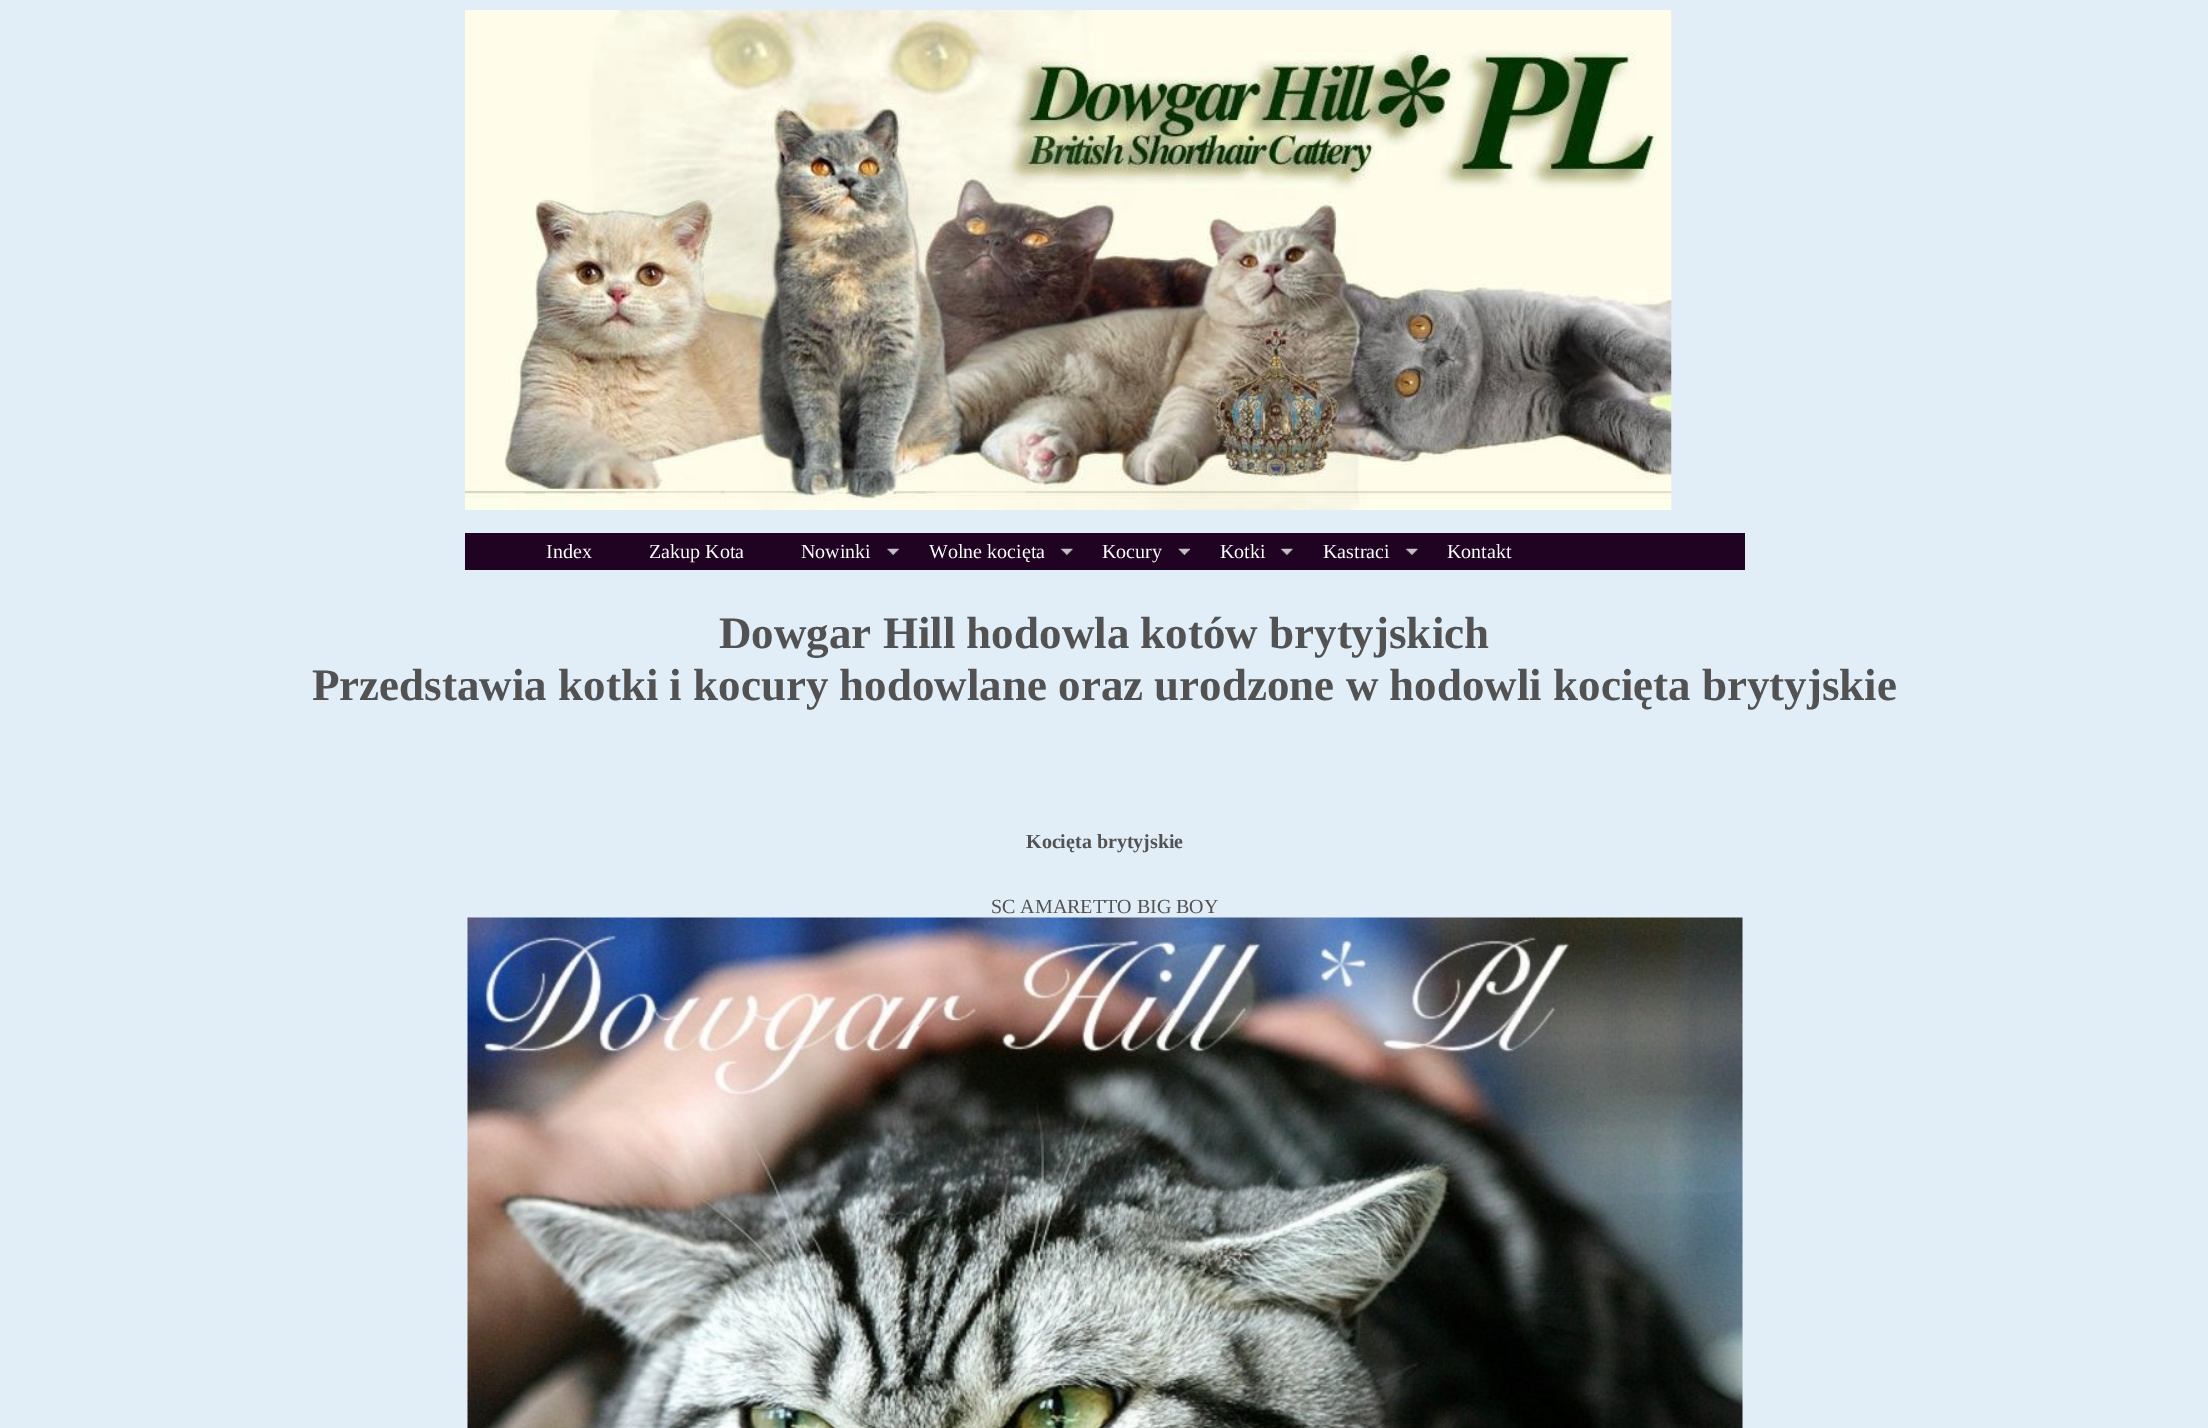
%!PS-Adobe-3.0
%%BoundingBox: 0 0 2208 1428
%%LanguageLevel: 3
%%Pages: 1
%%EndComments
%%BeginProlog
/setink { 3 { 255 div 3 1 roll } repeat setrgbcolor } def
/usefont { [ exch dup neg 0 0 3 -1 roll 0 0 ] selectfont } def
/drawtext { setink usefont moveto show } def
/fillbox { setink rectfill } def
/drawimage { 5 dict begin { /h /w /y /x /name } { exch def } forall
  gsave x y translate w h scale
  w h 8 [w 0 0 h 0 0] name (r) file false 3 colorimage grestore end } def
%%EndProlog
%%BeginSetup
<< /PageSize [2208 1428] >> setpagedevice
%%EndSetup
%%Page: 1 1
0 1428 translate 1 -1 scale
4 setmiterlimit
0 0 2208 1428 225 237 247 fillbox
(assets/img1.rgb) 465 10 1207 500 drawimage
465 533 1280 37 32 2 35 fillbox
(Index) 546 558 /LiberationSerif-Regular 20 255 255 255 drawtext
(Zakup Kota) 649 558 /LiberationSerif-Regular 20 255 255 255 drawtext
(assets/img2.rgb) 887 548 12 7 drawimage
(Nowinki) 801 558 /LiberationSerif-Regular 20 255 255 255 drawtext
(assets/img3.rgb) 1061 548 12 7 drawimage
(Wolne kocięta) 929 558 /LiberationSerif-Regular 20 255 255 255 drawtext
(assets/img4.rgb) 1178 548 12 7 drawimage
(Kocury) 1102 558 /LiberationSerif-Regular 20 255 255 255 drawtext
(assets/img3.rgb) 1281 548 12 7 drawimage
(Kotki) 1220 558 /LiberationSerif-Regular 20 255 255 255 drawtext
(assets/img3.rgb) 1406 548 12 7 drawimage
(Kastraci) 1323 558 /LiberationSerif-Regular 20 255 255 255 drawtext
(Kontakt) 1447 558 /LiberationSerif-Regular 20 255 255 255 drawtext
(Dowgar Hill hodowla kotów brytyjskich) 719 648 /LiberationSerif-Bold 45 82 82 82 drawtext
(Przedstawia kotki i kocury hodowlane oraz urodzone w hodowli kocięta brytyjskie) 312 700 /LiberationSerif-Bold 45 82 82 82 drawtext
(Kocięta brytyjskie) 1026 848 /LiberationSerif-Bold 20 82 82 82 drawtext
(SC AMARETTO BIG BOY) 991 913 /LiberationSerif-Regular 20 82 82 82 drawtext
(assets/img5.rgb) 467 917 1276 511 drawimage
showpage
%%EOF
